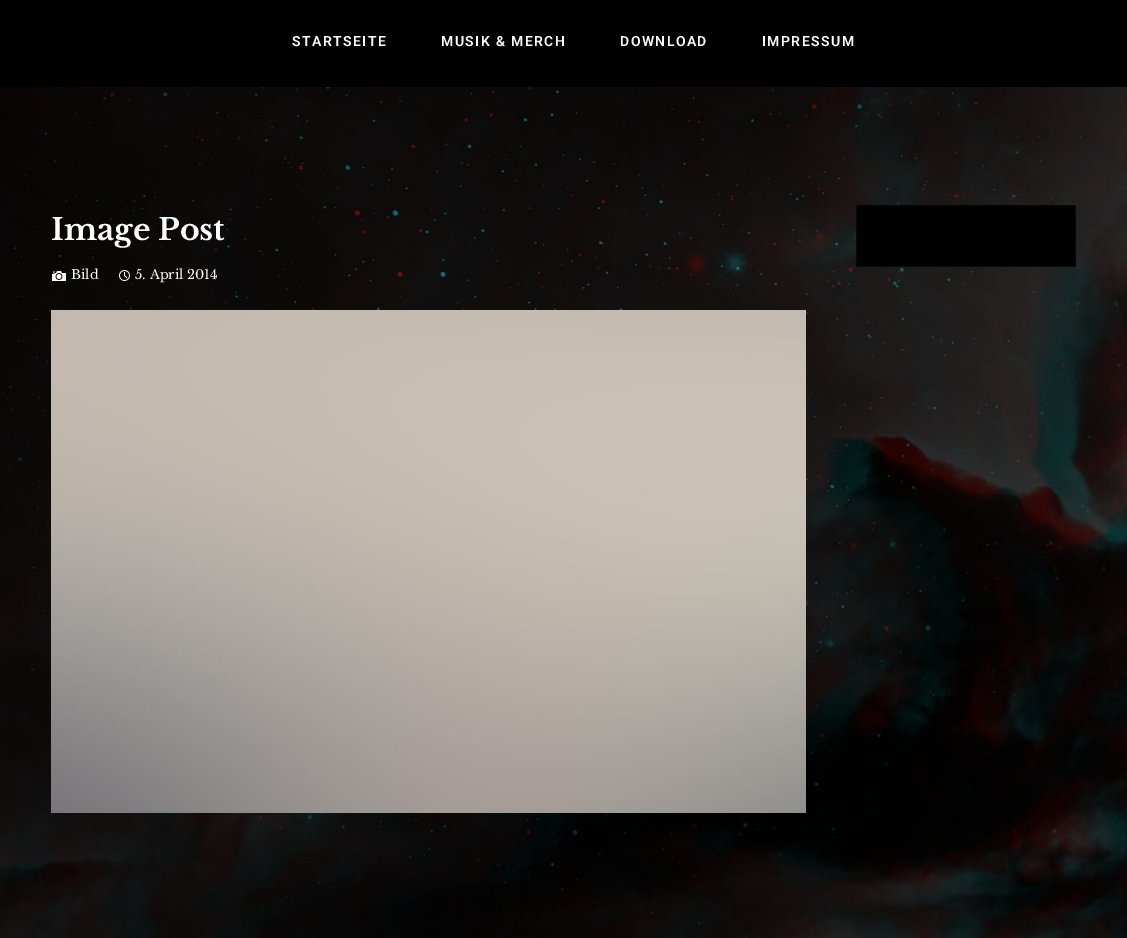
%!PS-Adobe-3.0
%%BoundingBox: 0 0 1127 938
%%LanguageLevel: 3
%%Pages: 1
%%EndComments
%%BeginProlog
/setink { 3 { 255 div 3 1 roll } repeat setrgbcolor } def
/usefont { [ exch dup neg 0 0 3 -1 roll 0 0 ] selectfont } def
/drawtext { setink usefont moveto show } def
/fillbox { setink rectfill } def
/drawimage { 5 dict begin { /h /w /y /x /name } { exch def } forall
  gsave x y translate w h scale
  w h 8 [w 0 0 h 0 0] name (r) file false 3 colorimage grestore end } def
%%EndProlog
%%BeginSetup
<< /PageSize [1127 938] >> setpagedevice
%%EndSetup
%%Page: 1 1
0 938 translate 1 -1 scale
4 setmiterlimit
0 0 1127 938 255 255 255 fillbox
(assets/img1.rgb) 0 87 1127 851 drawimage
0 0 1127 87 0 0 0 fillbox
/Roboto-SemiBold 14 usefont
255 255 255 setink
292 46 moveto 1.4 0 (STARTSEITE) ashow
441 46 moveto 1.4 0 (MUSIK & MERCH) ashow
620 46 moveto 1.4 0 (DOWNLOAD) ashow
762 46 moveto 1.4 0 (IMPRESSUM) ashow
(Image Post) 51 240 /LibreBaskerville-Bold 30 255 255 255 drawtext
(assets/img2.rgb) 52 271 14 10 drawimage
(Bild) 71 279 /LibreBaskerville-Regular 13 255 255 255 drawtext
(assets/img3.rgb) 119 270 11 11 drawimage
(5. April 2014) 135 279 /LibreBaskerville-Regular 13 255 255 255 drawtext
(assets/img4.rgb) 51 310 755 503 drawimage
857 205 218 61 0 0 0 fillbox
10 10 10 setink
[3 2.05] 0 setdash
856 205.5 moveto 1076 205.5 lineto stroke
1075 205 1 62 10 10 10 fillbox
856 266 220 1 10 10 10 fillbox
856 205 1 62 10 10 10 fillbox
showpage
%%EOF
